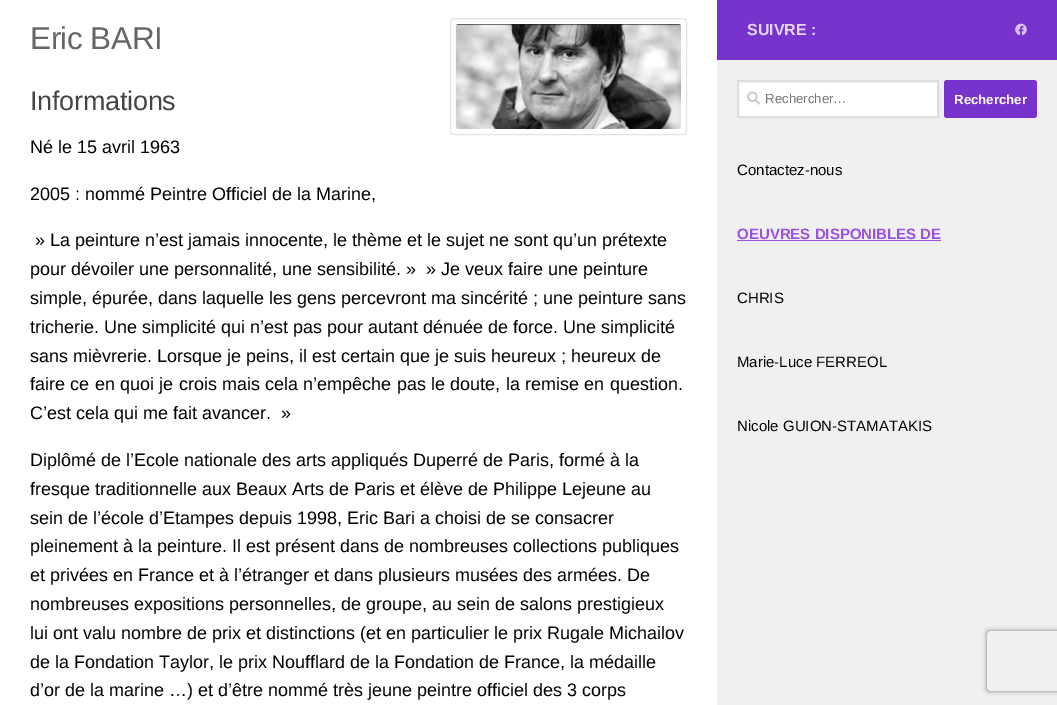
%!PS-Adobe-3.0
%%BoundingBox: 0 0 1057 705
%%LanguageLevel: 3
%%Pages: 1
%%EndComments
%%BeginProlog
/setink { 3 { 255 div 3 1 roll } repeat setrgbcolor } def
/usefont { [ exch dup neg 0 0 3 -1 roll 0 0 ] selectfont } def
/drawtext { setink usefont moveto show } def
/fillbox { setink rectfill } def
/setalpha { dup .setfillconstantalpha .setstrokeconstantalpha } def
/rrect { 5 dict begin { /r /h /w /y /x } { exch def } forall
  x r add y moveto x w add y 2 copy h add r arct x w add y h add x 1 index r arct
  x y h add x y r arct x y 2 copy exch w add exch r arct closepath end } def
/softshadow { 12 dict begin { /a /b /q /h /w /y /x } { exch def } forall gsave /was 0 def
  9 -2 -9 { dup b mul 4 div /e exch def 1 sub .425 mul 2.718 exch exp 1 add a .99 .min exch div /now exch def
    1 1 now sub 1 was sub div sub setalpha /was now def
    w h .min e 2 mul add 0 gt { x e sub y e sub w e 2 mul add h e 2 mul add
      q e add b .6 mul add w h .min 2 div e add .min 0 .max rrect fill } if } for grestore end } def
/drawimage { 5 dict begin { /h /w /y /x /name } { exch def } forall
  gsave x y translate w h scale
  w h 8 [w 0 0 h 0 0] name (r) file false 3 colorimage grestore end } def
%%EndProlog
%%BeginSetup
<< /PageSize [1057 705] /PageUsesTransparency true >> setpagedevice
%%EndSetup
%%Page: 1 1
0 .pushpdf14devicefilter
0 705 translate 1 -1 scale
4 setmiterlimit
0 0 1057 705 255 255 255 fillbox
/LiberationSans-Regular 31.5 usefont
102 102 102 setink
30 49 moveto -0.5 0 (Eric BARI) ashow
227 227 227 setink
450.5 18.5 236 116 3.5 rrect stroke
(assets/img1.rgb) 456 24 225 105 drawimage
/LiberationSans-Regular 27 usefont
68 68 68 setink
30 110 moveto -0.25 0 (Informations) ashow
(Né le 15 avril 1963) 30 153 /LiberationSans-Regular 18 0 0 0 drawtext
(2005 : nommé Peintre Officiel de la Marine,) 30 200 /LiberationSans-Regular 18 0 0 0 drawtext
(» La peinture n’est jamais innocente, le thème et le sujet ne sont qu’un prétexte) 35 246 /LiberationSans-Regular 18 0 0 0 drawtext
(pour dévoiler une personnalité, une sensibilité. »  » Je veux faire une peinture) 30 275 /LiberationSans-Regular 18 0 0 0 drawtext
(simple, épurée, dans laquelle les gens percevront ma sincérité ; une peinture sans) 30 304 /LiberationSans-Regular 18 0 0 0 drawtext
(tricherie. Une simplicité qui n’est pas pour autant dénuée de force. Une simplicité) 30 333 /LiberationSans-Regular 18 0 0 0 drawtext
(sans mièvrerie. Lorsque je peins, il est certain que je suis heureux ; heureux de) 30 362 /LiberationSans-Regular 18 0 0 0 drawtext
30 390 moveto 0.3 0 32 (faire ce en quoi je crois mais cela n’empêche pas le doute, la remise en question.) widthshow
(C’est cela qui me fait avancer.  ») 30 419 /LiberationSans-Regular 18 0 0 0 drawtext
(Diplômé de l’Ecole nationale des arts appliqués Duperré de Paris, formé à la) 30 466 /LiberationSans-Regular 18 0 0 0 drawtext
(fresque traditionnelle aux Beaux Arts de Paris et élève de Philippe Lejeune au) 30 495 /LiberationSans-Regular 18 0 0 0 drawtext
(sein de l’école d’Etampes depuis 1998, Eric Bari a choisi de se consacrer) 30 524 /LiberationSans-Regular 18 0 0 0 drawtext
(pleinement à la peinture. Il est présent dans de nombreuses collections publiques) 30 552 /LiberationSans-Regular 18 0 0 0 drawtext
(et privées en France et à l’étranger et dans plusieurs musées des armées. De) 30 581 /LiberationSans-Regular 18 0 0 0 drawtext
(nombreuses expositions personnelles, de groupe, au sein de salons prestigieux) 30 610 /LiberationSans-Regular 18 0 0 0 drawtext
(lui ont valu nombre de prix et distinctions \(et en particulier le prix Rugale Michailov) 30 639 /LiberationSans-Regular 18 0 0 0 drawtext
(de la Fondation Taylor, le prix Noufflard de la Fondation de France, la médaille) 30 668 /LiberationSans-Regular 18 0 0 0 drawtext
(d’or de la marine …\) et d’être nommé très jeune peintre officiel des 3 corps) 30 696 /LiberationSans-Regular 18 0 0 0 drawtext
717 0 340 60 119 51 204 fillbox
(SUIVRE :) 747 35 /LiberationSans-Bold 16 228 214 245 drawtext
(assets/img2.rgb) 1015 23 12 13 drawimage
717 60 340 645 240 240 240 fillbox
255 255 255 setink
738 81 moveto 938 81 lineto 938 117 lineto 738 117 lineto closepath gsave fill grestore
221 221 221 setink
2 setlinewidth
stroke
(assets/img3.rgb) 747 91 13 14 drawimage
(Rechercher…) 765 103 /LiberationSans-Regular 13.25 117 117 117 drawtext
119 51 204 setink
944 80 93 38 3 rrect fill
(Rechercher) 954 104 /LiberationSans-Bold 13.25 255 255 255 drawtext
(Contactez-nous) 737 175 /LiberationSans-Regular 15 0 0 0 drawtext
(OEUVRES DISPONIBLES DE) 737 239 /LiberationSans-Bold 15 155 81 224 drawtext
737 240 204 1 155 81 224 fillbox
(CHRIS) 737 303 /LiberationSans-Regular 15 0 0 0 drawtext
(Marie-Luce FERREOL) 737 367 /LiberationSans-Regular 15 0 0 0 drawtext
(Nicole GUION-STAMATAKIS) 737 431 /LiberationSans-Regular 15 0 0 0 drawtext
gsave
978 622 moveto 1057 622 lineto 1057 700 lineto 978 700 lineto closepath 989 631 moveto 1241 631 lineto 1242 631 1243 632 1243 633 curveto 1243 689 lineto 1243 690 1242 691 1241 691 curveto 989 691 lineto 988 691 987 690 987 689 curveto 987 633 lineto 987 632 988 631 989 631 curveto closepath eoclip newpath
128 128 128 setink
987 631 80 60 2 2.5 1 softshadow
grestore
.poppdf14devicefilter showpage
%%EOF
